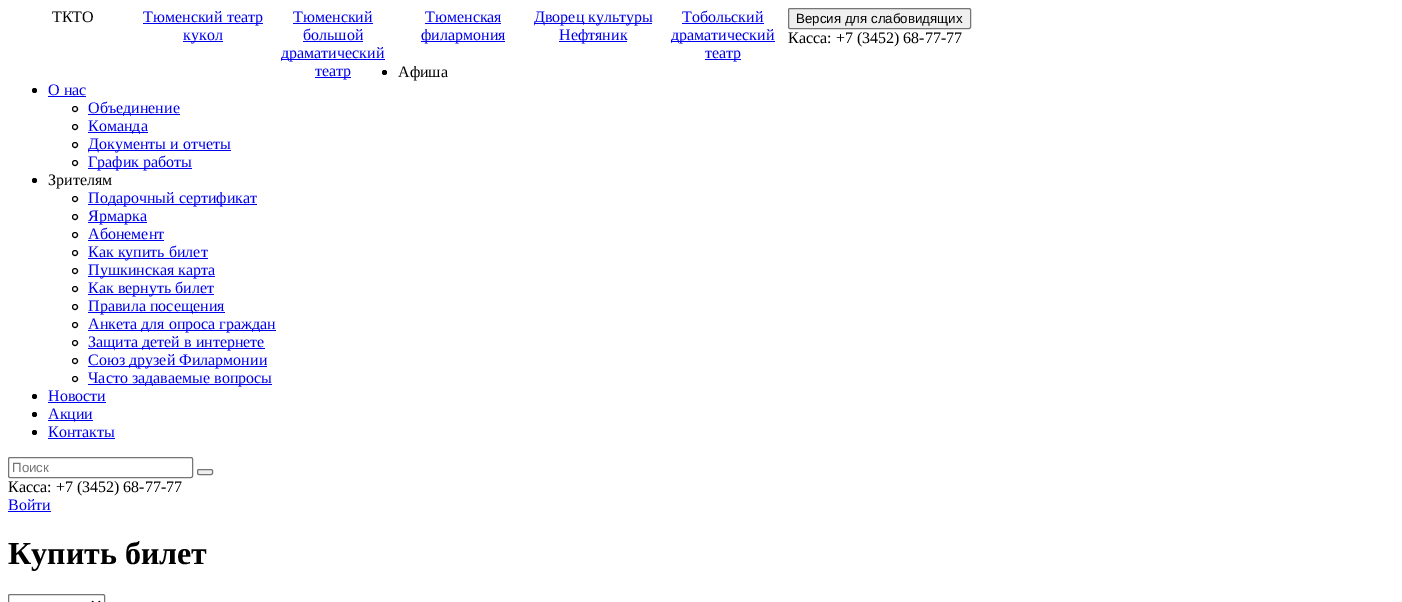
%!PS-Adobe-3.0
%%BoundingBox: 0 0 1402 602
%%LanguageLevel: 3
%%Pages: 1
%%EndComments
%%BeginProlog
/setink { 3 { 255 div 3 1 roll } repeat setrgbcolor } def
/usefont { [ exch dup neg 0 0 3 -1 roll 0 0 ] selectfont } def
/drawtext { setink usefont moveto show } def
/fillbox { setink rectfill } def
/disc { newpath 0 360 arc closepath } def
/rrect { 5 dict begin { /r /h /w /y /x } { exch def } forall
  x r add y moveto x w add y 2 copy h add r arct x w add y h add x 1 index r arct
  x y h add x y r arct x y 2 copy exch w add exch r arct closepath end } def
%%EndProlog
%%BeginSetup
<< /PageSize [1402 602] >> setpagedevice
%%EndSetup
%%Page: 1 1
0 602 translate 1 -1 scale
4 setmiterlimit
0 0 1402 602 255 255 255 fillbox
(ТКТО) 52 22 /LiberationSerif-Regular 16 0 0 0 drawtext
143 23 120 1 0 0 238 fillbox
(Тюменский театр) 143 22 /LiberationSerif-Regular 16 0 0 238 drawtext
183 41 40 1 0 0 238 fillbox
(кукол) 183 40 /LiberationSerif-Regular 16 0 0 238 drawtext
(Тюменский) 293 22 /LiberationSerif-Regular 16 0 0 238 drawtext
293 23 80 1 0 0 238 fillbox
(большой) 303 40 /LiberationSerif-Regular 16 0 0 238 drawtext
303 41 60 1 0 0 238 fillbox
281 59 104 1 0 0 238 fillbox
(драматический) 281 58 /LiberationSerif-Regular 16 0 0 238 drawtext
315 77 36 1 0 0 238 fillbox
(театр) 315 76 /LiberationSerif-Regular 16 0 0 238 drawtext
(Тюменская) 425 22 /LiberationSerif-Regular 16 0 0 238 drawtext
425 23 76 1 0 0 238 fillbox
421 41 84 1 0 0 238 fillbox
(филармония) 421 40 /LiberationSerif-Regular 16 0 0 238 drawtext
534 23 118 1 0 0 238 fillbox
(Дворец культуры) 534 22 /LiberationSerif-Regular 16 0 0 238 drawtext
559 41 68 1 0 0 238 fillbox
(Нефтяник) 559 40 /LiberationSerif-Regular 16 0 0 238 drawtext
(Тобольский) 682 22 /LiberationSerif-Regular 16 0 0 238 drawtext
682 23 82 1 0 0 238 fillbox
671 41 104 1 0 0 238 fillbox
(драматический) 671 40 /LiberationSerif-Regular 16 0 0 238 drawtext
705 59 36 1 0 0 238 fillbox
(театр) 705 58 /LiberationSerif-Regular 16 0 0 238 drawtext
239 239 239 setink
788.5 8.5 182 20 1.5 rrect gsave fill grestore
118 118 118 setink
stroke
(Версия для слабовидящих) 796 23 /LiberationSans-Regular 13.3 0 0 0 drawtext
(Касса: +7 \(3452\) 68-77-77) 788 43 /LiberationSerif-Regular 16 0 0 0 drawtext
384.5 72.5 2.5 disc fill
(Афиша) 398 77 /LiberationSerif-Regular 16 0 0 0 drawtext
34.5 90.5 2.5 disc fill
(О нас) 48 95 /LiberationSerif-Regular 16 0 0 238 drawtext
48 96 38 1 0 0 238 fillbox
0 0 0 setink
75 109 2.5 disc stroke
88 114 92 1 0 0 238 fillbox
(Объединение) 88 113 /LiberationSerif-Regular 16 0 0 238 drawtext
0 0 0 setink
75 127 2.5 disc stroke
88 132 60 1 0 0 238 fillbox
(Команда) 88 131 /LiberationSerif-Regular 16 0 0 238 drawtext
0 0 0 setink
75 145 2.5 disc stroke
88 150 143 1 0 0 238 fillbox
(Документы и отчеты) 88 149 /LiberationSerif-Regular 16 0 0 238 drawtext
0 0 0 setink
75 163 2.5 disc stroke
88 168 104 1 0 0 238 fillbox
(График работы) 88 167 /LiberationSerif-Regular 16 0 0 238 drawtext
0 0 0 setink
34.5 180.5 2.5 disc fill
(Зрителям) 48 185 /LiberationSerif-Regular 16 0 0 0 drawtext
75 199 2.5 disc stroke
88 204 169 1 0 0 238 fillbox
(Подарочный сертификат) 88 203 /LiberationSerif-Regular 16 0 0 238 drawtext
0 0 0 setink
75 217 2.5 disc stroke
88 222 59 1 0 0 238 fillbox
(Ярмарка) 88 221 /LiberationSerif-Regular 16 0 0 238 drawtext
0 0 0 setink
75 235 2.5 disc stroke
(Абонемент) 88 239 /LiberationSerif-Regular 16 0 0 238 drawtext
88 240 76 1 0 0 238 fillbox
0 0 0 setink
75 253 2.5 disc stroke
88 258 120 1 0 0 238 fillbox
(Как купить билет) 88 257 /LiberationSerif-Regular 16 0 0 238 drawtext
0 0 0 setink
75 271 2.5 disc stroke
88 276 127 1 0 0 238 fillbox
(Пушкинская карта) 88 275 /LiberationSerif-Regular 16 0 0 238 drawtext
0 0 0 setink
75 289 2.5 disc stroke
88 294 126 1 0 0 238 fillbox
(Как вернуть билет) 88 293 /LiberationSerif-Regular 16 0 0 238 drawtext
0 0 0 setink
75 307 2.5 disc stroke
88 312 137 1 0 0 238 fillbox
(Правила посещения) 88 311 /LiberationSerif-Regular 16 0 0 238 drawtext
0 0 0 setink
75 325 2.5 disc stroke
88 330 188 1 0 0 238 fillbox
(Анкета для опроса граждан) 88 329 /LiberationSerif-Regular 16 0 0 238 drawtext
0 0 0 setink
75 343 2.5 disc stroke
88 348 177 1 0 0 238 fillbox
(Защита детей в интернете) 88 347 /LiberationSerif-Regular 16 0 0 238 drawtext
0 0 0 setink
75 361 2.5 disc stroke
88 366 179 1 0 0 238 fillbox
(Союз друзей Филармонии) 88 365 /LiberationSerif-Regular 16 0 0 238 drawtext
0 0 0 setink
75 379 2.5 disc stroke
88 384 184 1 0 0 238 fillbox
(Часто задаваемые вопросы) 88 383 /LiberationSerif-Regular 16 0 0 238 drawtext
0 0 0 setink
34.5 396.5 2.5 disc fill
(Новости) 48 401 /LiberationSerif-Regular 16 0 0 238 drawtext
48 402 58 1 0 0 238 fillbox
0 0 0 setink
34.5 414.5 2.5 disc fill
48 420 45 1 0 0 238 fillbox
(Акции) 48 419 /LiberationSerif-Regular 16 0 0 238 drawtext
0 0 0 setink
34.5 432.5 2.5 disc fill
(Контакты) 48 437 /LiberationSerif-Regular 16 0 0 238 drawtext
48 438 67 1 0 0 238 fillbox
118 118 118 setink
8.5 457.5 184 20 1.5 rrect stroke
(Поиск) 12 472 /LiberationSans-Regular 13.3 117 117 117 drawtext
239 239 239 setink
197.5 469.5 15 5 1.5 rrect gsave fill grestore
118 118 118 setink
stroke
(Касса: +7 \(3452\) 68-77-77) 8 492 /LiberationSerif-Regular 16 0 0 0 drawtext
(Войти) 8 510 /LiberationSerif-Regular 16 0 0 238 drawtext
8 511 43 1 0 0 238 fillbox
(Купить билет) 8 564 /LiberationSerif-Bold 32 0 0 0 drawtext
118 118 118 setink
8.5 594.5 96 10 1.5 rrect stroke
0 0 0 setink
2 setlinewidth
92 601.5 moveto 96 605.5 lineto 100 601.5 lineto stroke
showpage
%%EOF
